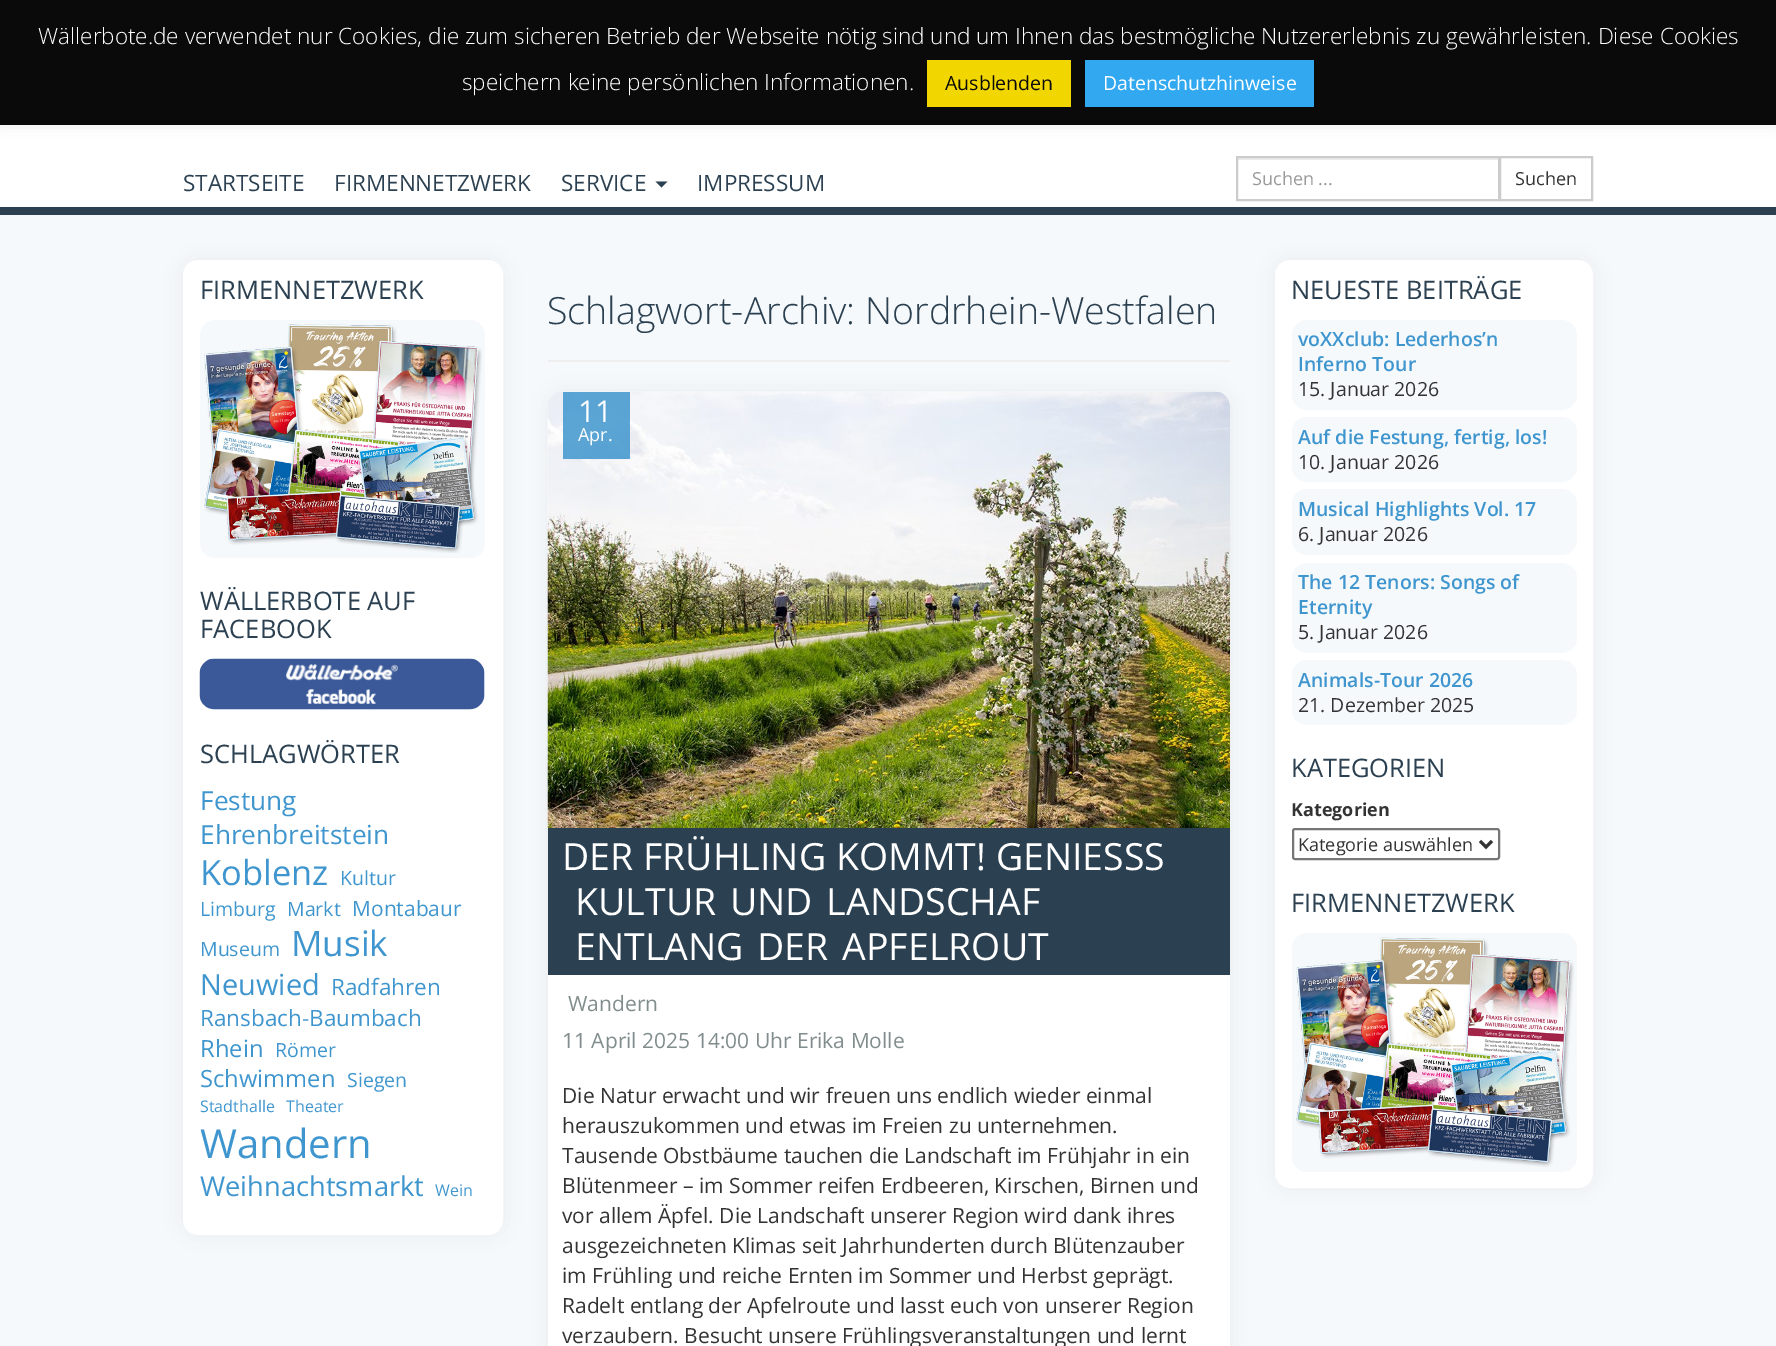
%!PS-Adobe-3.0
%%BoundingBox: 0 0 1776 1346
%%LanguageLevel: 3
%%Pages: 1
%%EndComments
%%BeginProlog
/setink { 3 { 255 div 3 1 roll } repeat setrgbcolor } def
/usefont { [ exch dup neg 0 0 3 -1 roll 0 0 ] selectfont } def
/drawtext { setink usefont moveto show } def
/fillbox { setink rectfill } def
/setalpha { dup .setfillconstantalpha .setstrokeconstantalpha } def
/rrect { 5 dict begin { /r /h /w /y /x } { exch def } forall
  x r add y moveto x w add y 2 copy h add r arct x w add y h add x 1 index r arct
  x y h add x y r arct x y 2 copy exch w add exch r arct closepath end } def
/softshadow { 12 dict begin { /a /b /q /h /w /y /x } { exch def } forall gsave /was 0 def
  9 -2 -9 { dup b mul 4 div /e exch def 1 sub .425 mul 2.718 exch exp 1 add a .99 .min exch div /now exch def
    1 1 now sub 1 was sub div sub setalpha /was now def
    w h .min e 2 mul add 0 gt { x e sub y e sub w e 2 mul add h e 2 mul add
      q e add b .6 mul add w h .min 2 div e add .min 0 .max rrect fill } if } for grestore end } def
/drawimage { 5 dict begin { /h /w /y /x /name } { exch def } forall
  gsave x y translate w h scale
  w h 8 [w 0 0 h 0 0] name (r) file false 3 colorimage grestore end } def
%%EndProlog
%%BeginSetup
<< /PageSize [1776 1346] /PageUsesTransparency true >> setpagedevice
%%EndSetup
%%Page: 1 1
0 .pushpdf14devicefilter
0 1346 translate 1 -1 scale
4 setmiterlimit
0 0 1776 1346 246 249 252 fillbox
0 125 1776 82 255 255 255 fillbox
172 171 171 setink
0 -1 1776 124 0 7.5 0.3 softshadow
0 0 1776 125 10 10 10 fillbox
(Wällerbote.de verwendet nur Cookies, die zum sicheren Betrieb der Webseite nötig sind und um Ihnen das bestmögliche Nutzererlebnis zu gewährleisten. Diese Cookies) 38 44 /OpenSans-Light 22.5 255 255 255 drawtext
(speichern keine persönlichen Informationen.) 462 90 /OpenSans-Light 22.5 255 255 255 drawtext
927 60 144 47 241 214 0 fillbox
(Ausblenden) 945 90 /OpenSans-Regular 19.5 10 10 10 drawtext
1085 60 229 47 49 168 240 fillbox
(Datenschutzhinweise) 1103 90 /OpenSans-Regular 19.5 255 255 255 drawtext
(STARTSEITE) 183 191 /OpenSans-Regular 22.5 43 64 80 drawtext
(FIRMENNETZWERK) 334 191 /OpenSans-Regular 22.5 43 64 80 drawtext
(SERVICE) 561 191 /OpenSans-Regular 22.5 43 64 80 drawtext
655.5 181.5 moveto 667.5 181.5 lineto 661.5 187.5 lineto closepath fill
(IMPRESSUM) 697 191 /OpenSans-Regular 22.5 43 64 80 drawtext
1238 158 261 2 236 236 236 fillbox
204 204 204 setink
2 setlinewidth
1237 157 262 43 rectstroke
(Suchen ...) 1252 185 /OpenSans-Regular 18 153 153 153 drawtext
204 204 204 setink
1500 157 92 43 rectstroke
(Suchen) 1515 185 /OpenSans-Regular 18 51 51 51 drawtext
0 207 1776 8 43 64 80 fillbox
0 0 0 setink
183 260 320 975 15 11 0.05 softshadow
255 255 255 setink
184 261 318 973 14 rrect gsave fill grestore
stroke
(FIRMENNETZWERK) 200 299 /OpenSans-Regular 25.5 43 64 80 drawtext
246 249 252 setink
200 320 285 238 15 rrect fill
(assets/img1.rgb) 204 324 278 229 drawimage
(WÄLLERBOTE AUF) 200 610 /OpenSans-Regular 25.5 43 64 80 drawtext
(FACEBOOK) 200 638 /OpenSans-Regular 25.5 43 64 80 drawtext
246 249 252 setink
200 659 285 51 15 rrect fill
(assets/img2.rgb) 199 658 286 52 drawimage
(SCHLAGWÖRTER) 200 763 /OpenSans-Regular 25.5 43 64 80 drawtext
(Festung) 200 810 /OpenSans-Regular 26.25 63 150 206 drawtext
(Ehrenbreitstein) 200 844 /OpenSans-Regular 26.25 63 150 206 drawtext
(Koblenz) 200 885 /OpenSans-Regular 34.5 63 150 206 drawtext
(Kultur) 340 885 /OpenSans-Regular 19.5 63 150 206 drawtext
(Limburg) 200 916 /OpenSans-Regular 19.5 63 150 206 drawtext
(Markt) 287 916 /OpenSans-Regular 19.5 63 150 206 drawtext
(Montabaur) 352 916 /OpenSans-Regular 21 63 150 206 drawtext
(Museum) 200 956 /OpenSans-Regular 19.5 63 150 206 drawtext
(Musik) 291 956 /OpenSans-Regular 35 63 150 206 drawtext
(Neuwied) 200 995 /OpenSans-Regular 29 63 150 206 drawtext
(Radfahren) 331 995 /OpenSans-Regular 22.5 63 150 206 drawtext
(Ransbach-Baumbach) 200 1026 /OpenSans-Regular 22.5 63 150 206 drawtext
(Rhein) 200 1057 /OpenSans-Regular 23.75 63 150 206 drawtext
(Römer) 275 1057 /OpenSans-Regular 19.5 63 150 206 drawtext
(Schwimmen) 200 1087 /OpenSans-Regular 23.75 63 150 206 drawtext
(Siegen) 347 1087 /OpenSans-Regular 19.5 63 150 206 drawtext
(Stadthalle) 200 1112 /OpenSans-Regular 16 63 150 206 drawtext
(Theater) 286 1112 /OpenSans-Regular 16 63 150 206 drawtext
(Wandern) 200 1158 /OpenSans-Regular 40 63 150 206 drawtext
(Weihnachtsmarkt) 200 1196 /OpenSans-Regular 27.25 63 150 206 drawtext
(Wein) 435 1196 /OpenSans-Regular 16 63 150 206 drawtext
548 360 682 2 238 238 238 fillbox
(Schlagwort-Archiv: Nordrhein-Westfalen) 547 324 /OpenSans-Light 37.5 43 64 80 drawtext
0 0 0 setink
548 392 682 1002 15 11 0.05 softshadow
255 255 255 setink
548 392 682 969 15 rrect fill
(assets/img3.rgb) 547 391 683 437 drawimage
0.85 setalpha
563 392 67 67 63 150 206 fillbox
1 setalpha
(11) 578 422 /OpenSans-Regular 30 255 255 255 drawtext
(Apr.) 578 441 /OpenSans-Regular 18 255 255 255 drawtext
548 828 682 147 43 64 80 fillbox
(DER FRÜHLING KOMMT! GENIESSS) 562 870 /OpenSans-Regular 37.5 255 255 255 drawtext
575 915 moveto 4 0 32 (KULTUR UND LANDSCHAF) widthshow
575 960 moveto 4 0 32 (ENTLANG DER APFELROUT) widthshow
(Wandern) 568 1011 /OpenSans-Regular 21 129 141 141 drawtext
(11 April 2025 14:00 Uhr Erika Molle) 562 1048 /OpenSans-Regular 21 129 141 141 drawtext
(Die Natur erwacht und wir freuen uns endlich wieder einmal) 562 1103 /OpenSans-Regular 21 51 51 51 drawtext
(herauszukommen und etwas im Freien zu unternehmen.) 562 1133 /OpenSans-Regular 21 51 51 51 drawtext
(Tausende Obstbäume tauchen die Landschaft im Frühjahr in ein) 562 1163 /OpenSans-Regular 21 51 51 51 drawtext
(Blütenmeer – im Sommer reifen Erdbeeren, Kirschen, Birnen und) 562 1193 /OpenSans-Regular 21 51 51 51 drawtext
(vor allem Äpfel. Die Landschaft unserer Region wird dank ihres) 562 1223 /OpenSans-Regular 21 51 51 51 drawtext
(ausgezeichneten Klimas seit Jahrhunderten durch Blütenzauber) 562 1253 /OpenSans-Regular 21 51 51 51 drawtext
(im Frühling und reiche Ernten im Sommer und Herbst geprägt.) 562 1283 /OpenSans-Regular 21 51 51 51 drawtext
(Radelt entlang der Apfelroute und lasst euch von unserer Region) 562 1313 /OpenSans-Regular 21 51 51 51 drawtext
(verzaubern. Besucht unsere Frühlingsveranstaltungen und lernt) 562 1343 /OpenSans-Regular 21 51 51 51 drawtext
0 0 0 setink
1275 260 318 928 15 11 0.05 softshadow
255 255 255 setink
1276 261 316 926 14 rrect gsave fill grestore
stroke
(NEUESTE BEITRÄGE) 1291 299 /OpenSans-Regular 25.5 43 64 80 drawtext
246 249 252 setink
1292 320 285 90 15 rrect fill
(voXXclub: Lederhos’n) 1298 346 /OpenSans-SemiBold 19.5 63 150 206 drawtext
(Inferno Tour) 1298 371 /OpenSans-SemiBold 19.5 63 150 206 drawtext
(15. Januar 2026) 1298 396 /OpenSans-Regular 19.5 51 51 51 drawtext
246 249 252 setink
1292 417 285 65 15 rrect fill
(Auf die Festung, fertig, los!) 1298 444 /OpenSans-SemiBold 19.5 63 150 206 drawtext
(10. Januar 2026) 1298 469 /OpenSans-Regular 19.5 51 51 51 drawtext
246 249 252 setink
1292 489 285 66 15 rrect fill
(Musical Highlights Vol. 17) 1298 516 /OpenSans-SemiBold 19.5 63 150 206 drawtext
(6. Januar 2026) 1298 541 /OpenSans-Regular 19.5 51 51 51 drawtext
246 249 252 setink
1292 563 285 90 15 rrect fill
(The 12 Tenors: Songs of) 1298 589 /OpenSans-SemiBold 19.5 63 150 206 drawtext
(Eternity) 1298 614 /OpenSans-SemiBold 19.5 63 150 206 drawtext
(5. Januar 2026) 1298 639 /OpenSans-Regular 19.5 51 51 51 drawtext
246 249 252 setink
1292 660 285 65 15 rrect fill
(Animals-Tour 2026) 1298 687 /OpenSans-SemiBold 19.5 63 150 206 drawtext
(21. Dezember 2025) 1298 712 /OpenSans-Regular 19.5 51 51 51 drawtext
(KATEGORIEN) 1291 777 /OpenSans-Regular 25.5 43 64 80 drawtext
(Kategorien) 1291 816 /OpenSans-Bold 18 51 51 51 drawtext
118 118 118 setink
1293 829 206 30 2 rrect stroke
51 51 51 setink
3 setlinewidth
1480 841 moveto 1486 847 lineto 1492 841 lineto stroke
(Kategorie auswählen) 1298 851 /OpenSans-Regular 18 51 51 51 drawtext
(FIRMENNETZWERK) 1291 912 /OpenSans-Regular 25.5 43 64 80 drawtext
246 249 252 setink
1292 933 285 239 15 rrect fill
(assets/img4.rgb) 1296 937 278 230 drawimage
.poppdf14devicefilter showpage
%%EOF
